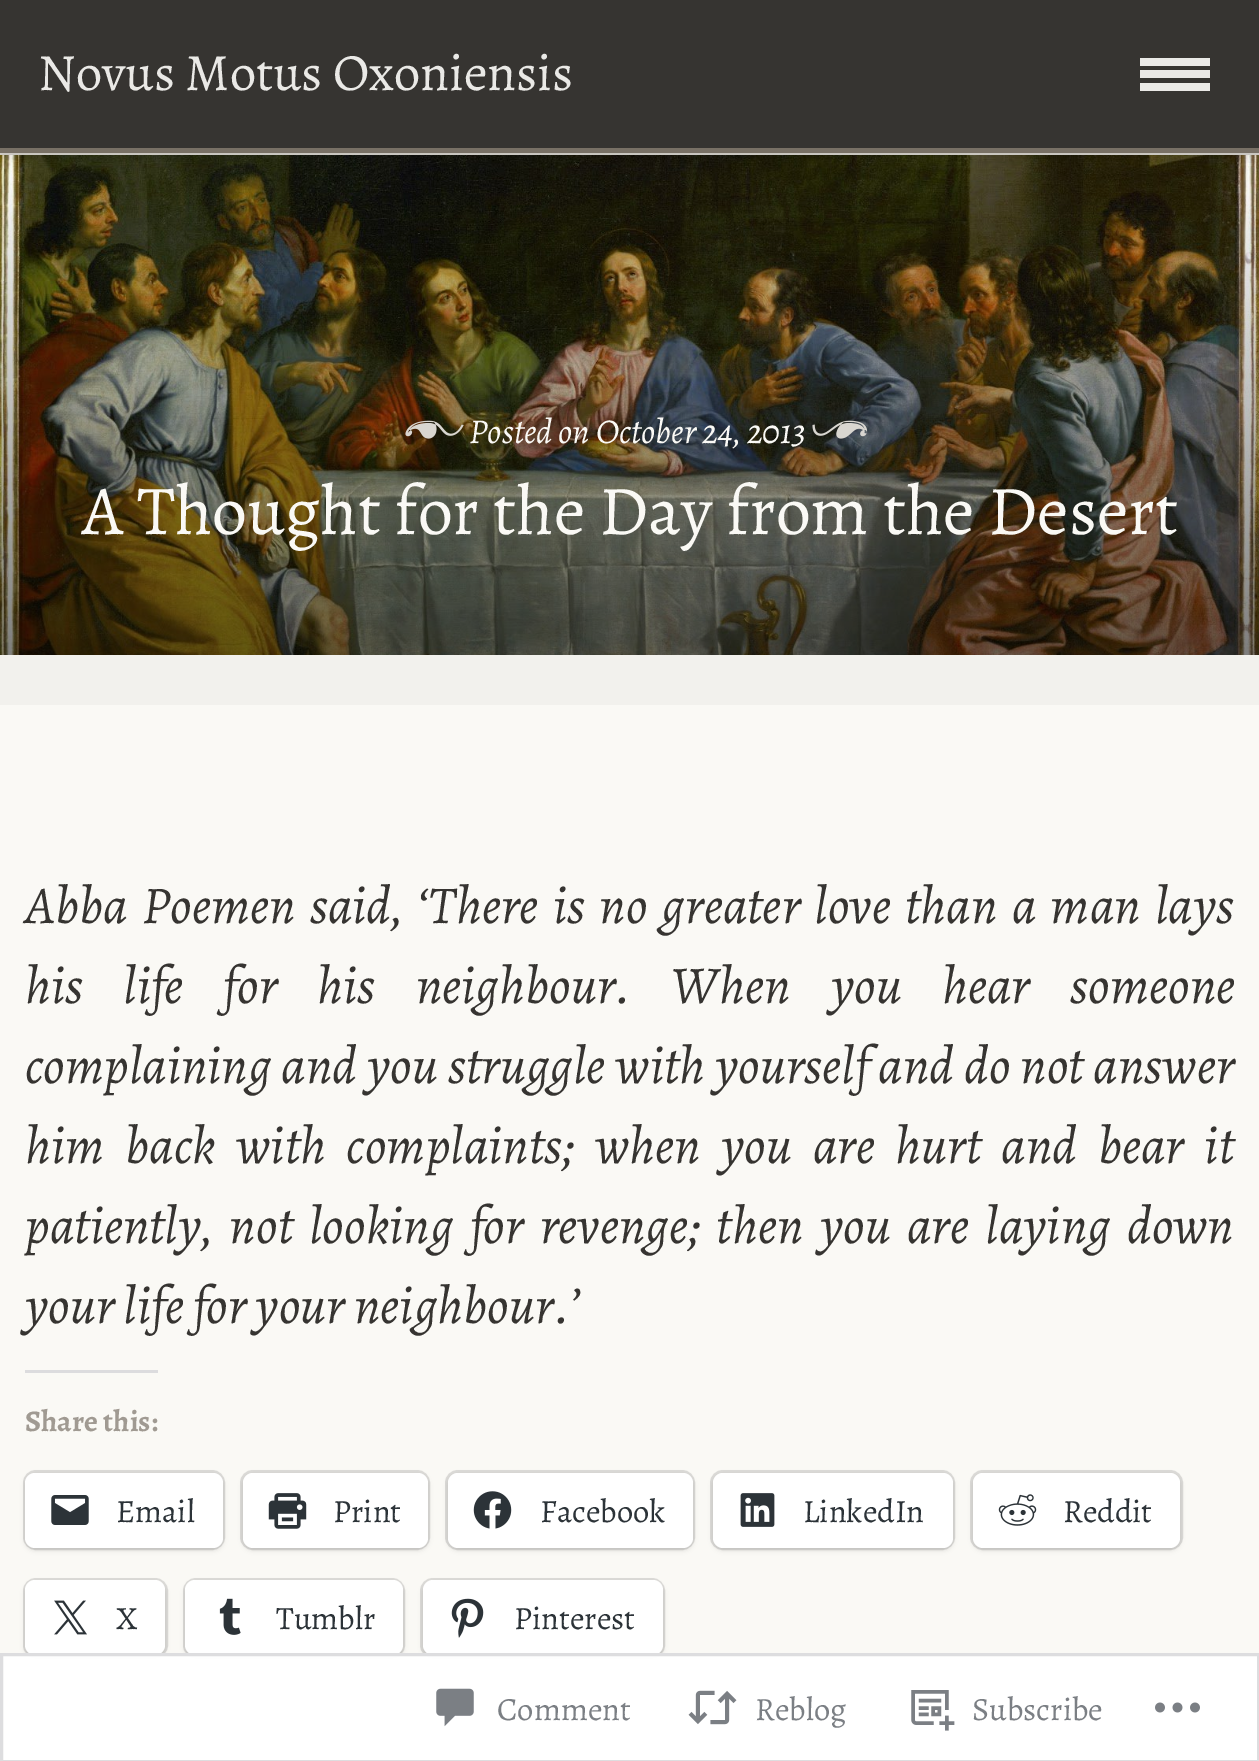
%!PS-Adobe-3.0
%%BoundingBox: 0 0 1259 1761
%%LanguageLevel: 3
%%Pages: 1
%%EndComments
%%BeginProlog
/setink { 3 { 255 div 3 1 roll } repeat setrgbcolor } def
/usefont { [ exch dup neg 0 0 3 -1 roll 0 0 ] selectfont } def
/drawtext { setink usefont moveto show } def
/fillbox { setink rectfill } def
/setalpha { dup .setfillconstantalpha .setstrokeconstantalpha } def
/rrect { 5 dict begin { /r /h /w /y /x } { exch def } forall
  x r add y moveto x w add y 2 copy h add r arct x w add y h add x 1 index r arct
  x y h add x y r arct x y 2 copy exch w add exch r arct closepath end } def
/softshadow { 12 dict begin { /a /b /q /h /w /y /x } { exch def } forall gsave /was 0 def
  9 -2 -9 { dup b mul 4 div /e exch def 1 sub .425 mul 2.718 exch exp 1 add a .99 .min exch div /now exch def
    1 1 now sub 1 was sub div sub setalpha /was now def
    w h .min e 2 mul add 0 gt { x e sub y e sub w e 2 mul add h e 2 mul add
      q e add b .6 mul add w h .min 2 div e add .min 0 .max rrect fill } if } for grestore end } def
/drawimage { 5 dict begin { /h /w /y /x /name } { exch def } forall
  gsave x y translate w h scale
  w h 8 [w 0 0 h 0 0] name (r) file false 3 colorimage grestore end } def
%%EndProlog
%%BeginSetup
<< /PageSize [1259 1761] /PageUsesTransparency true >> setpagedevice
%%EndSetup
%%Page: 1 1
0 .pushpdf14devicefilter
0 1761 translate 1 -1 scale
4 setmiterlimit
0 0 1259 1761 242 241 237 fillbox
0 153 1259 2 217 214 208 fillbox
(assets/img1.rgb) 0 155 1259 500 drawimage
0 0 0 setink
0 5 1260 153 0 6 0.1 softshadow
0 0 1259 148 54 52 49 fillbox
0 148 1259 5 120 112 101 fillbox
(Novus Motus Oxoniensis) 38 90 /Alegreya-Regular 52.5 234 233 230 drawtext
1140 58 70 8 234 233 230 fillbox
1140 70 70 8 234 233 230 fillbox
1140 83 70 8 234 233 230 fillbox
(assets/img2.rgb) 405 420 59 19 drawimage
(Posted on October 24, 2013) 469 443 /Alegreya-Italic 35 250 249 245 drawtext
(assets/img3.rgb) 812 420 56 19 drawimage
(A Thought for the Day from the Desert) 82 534 /Alegreya-Regular 70 250 249 245 drawtext
0 705 1259 1055 250 249 245 fillbox
/Alegreya-Italic 53.3 usefont
54 52 49 setink
25 923 moveto 5.25 0 32 (Abba Poemen said, ‘There is no greater love than a man lays) widthshow
25 1003 moveto 31 0 32 (his life for his neighbour. When you hear someone) widthshow
25 1083 moveto 0.9 0 32 (complaining and you struggle with yourself and do not answer) widthshow
25 1163 moveto 11.5 0 32 (him back with complaints; when you are hurt and bear it) widthshow
25 1243 moveto 7.25 0 32 (patiently, not looking for revenge; then you are laying down) widthshow
(your life for your neighbour.’) 25 1323 /Alegreya-Italic 53.3 54 52 49 drawtext
25 1370 133 3 220 220 222 fillbox
(Share this:) 25 1431 /Alegreya-Bold 30 160 154 146 drawtext
220 219 216 setink
3 setlinewidth
24.5 1471.5 199 77 11.5 rrect stroke
0 0 0 setink
25 1475 198 75 10 2.5 0.12 softshadow
255 255 255 setink
25 1473 198 75 10 rrect fill
(assets/img4.rgb) 51 1495 38 30 drawimage
(Email) 116 1522 /Alegreya-Regular 32.5 44 51 56 drawtext
220 219 216 setink
241.5 1471.5 187 77 11.5 rrect stroke
0 0 0 setink
243 1475 185 75 10 2.5 0.12 softshadow
255 255 255 setink
243 1473 185 75 10 rrect fill
(assets/img5.rgb) 268 1493 39 36 drawimage
(Print) 333 1522 /Alegreya-Regular 32.5 44 51 56 drawtext
220 219 216 setink
446.5 1471.5 247 77 11.5 rrect stroke
0 0 0 setink
448 1475 245 75 10 2.5 0.12 softshadow
255 255 255 setink
448 1473 245 75 10 rrect fill
(assets/img6.rgb) 473 1491 39 38 drawimage
(Facebook) 540 1522 /Alegreya-Regular 32.5 44 51 56 drawtext
220 219 216 setink
711.5 1471.5 242 77 11.5 rrect stroke
0 0 0 setink
713 1475 240 75 10 2.5 0.12 softshadow
255 255 255 setink
713 1473 240 75 10 rrect fill
(assets/img7.rgb) 740 1493 35 34 drawimage
(LinkedIn) 803 1522 /Alegreya-Regular 32.5 44 51 56 drawtext
220 219 216 setink
971.5 1471.5 210 77 11.5 rrect stroke
0 0 0 setink
973 1475 207 75 10 2.5 0.12 softshadow
255 255 255 setink
973 1473 207 75 10 rrect fill
(assets/img8.rgb) 998 1494 39 32 drawimage
(Reddit) 1063 1522 /Alegreya-Regular 32.5 44 51 56 drawtext
220 219 216 setink
24.5 1579.5 142 77 11.5 rrect stroke
0 0 0 setink
25 1583 140 75 10 2.5 0.12 softshadow
255 255 255 setink
25 1580 140 75 10 rrect fill
(assets/img9.rgb) 54 1600 33 35 drawimage
(X) 116 1629 /Alegreya-Regular 32.5 44 51 56 drawtext
220 219 216 setink
184.5 1579.5 219 77 11.5 rrect stroke
0 0 0 setink
185 1583 218 75 10 2.5 0.12 softshadow
255 255 255 setink
185 1580 218 75 10 rrect fill
(assets/img10.rgb) 219 1598 22 37 drawimage
(Tumblr) 276 1629 /Alegreya-Regular 32.5 44 51 56 drawtext
220 219 216 setink
421.5 1579.5 242 77 11.5 rrect stroke
0 0 0 setink
423 1583 240 75 10 2.5 0.12 softshadow
255 255 255 setink
423 1580 240 75 10 rrect fill
(assets/img11.rgb) 451 1598 33 40 drawimage
(Pinterest) 514 1629 /Alegreya-Regular 32.5 44 51 56 drawtext
0.98 setalpha
255 255 255 setink
1.5 1654.5 moveto 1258.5 1654.5 lineto 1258.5 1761.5 lineto 1.5 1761.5 lineto closepath fill
1 setalpha
221 221 223 setink
1.5 1654.5 moveto 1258.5 1654.5 lineto 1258.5 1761.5 lineto 1.5 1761.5 lineto closepath stroke
(assets/img12.rgb) 436 1688 38 39 drawimage
(Comment) 497 1720 /Alegreya-Regular 32.5 123 127 132 drawtext
(assets/img13.rgb) 688 1690 49 35 drawimage
(Reblog) 755 1720 /Alegreya-Regular 32.5 123 127 132 drawtext
(assets/img14.rgb) 911 1690 44 41 drawimage
(Subscribe) 972 1720 /Alegreya-Regular 32.5 123 127 132 drawtext
(assets/img15.rgb) 1155 1702 45 11 drawimage
.poppdf14devicefilter showpage
%%EOF
